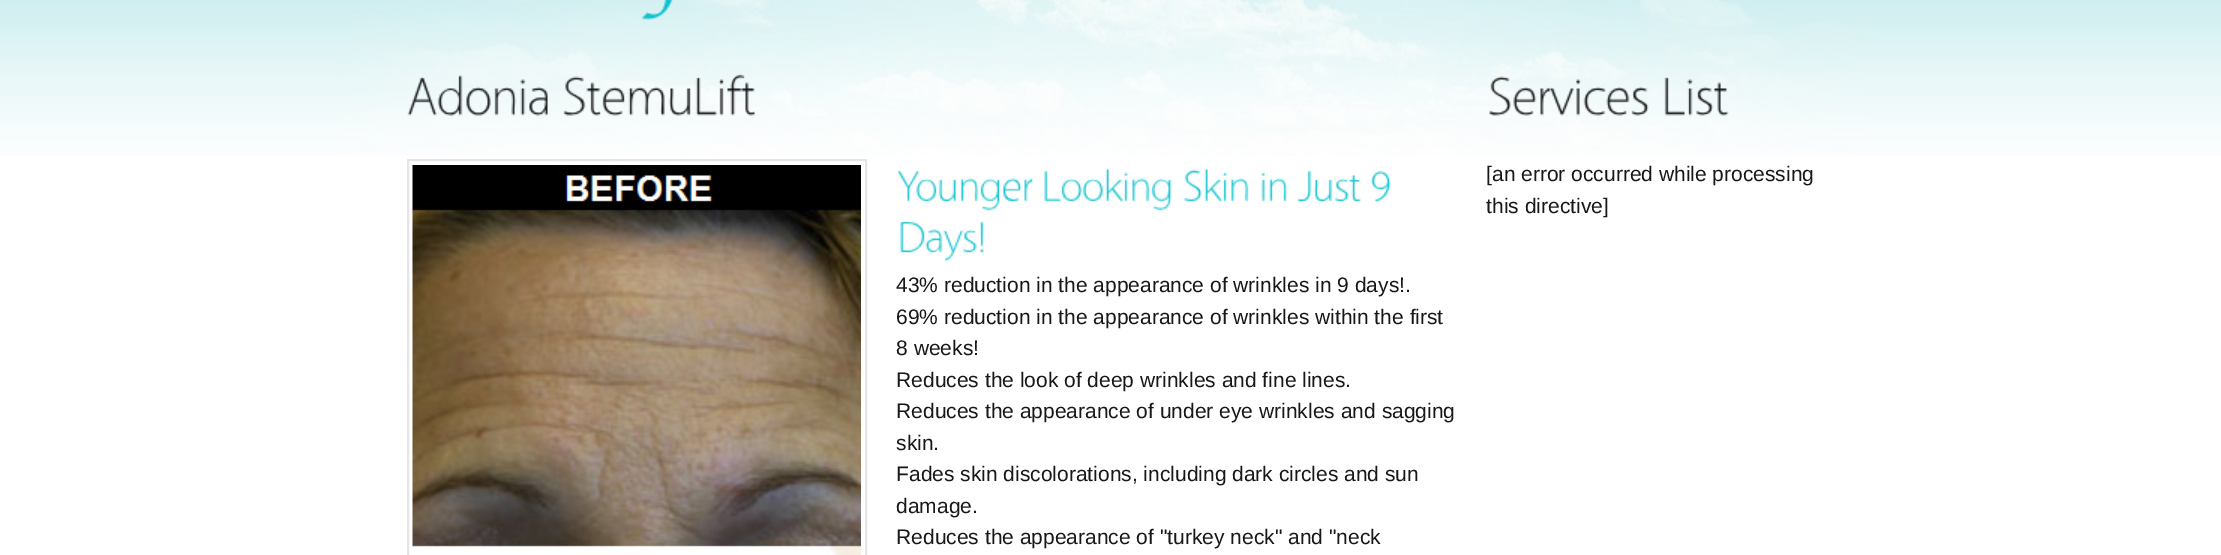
%!PS-Adobe-3.0
%%BoundingBox: 0 0 2221 555
%%LanguageLevel: 3
%%Pages: 1
%%EndComments
%%BeginProlog
/setink { 3 { 255 div 3 1 roll } repeat setrgbcolor } def
/usefont { [ exch dup neg 0 0 3 -1 roll 0 0 ] selectfont } def
/drawtext { setink usefont moveto show } def
/fillbox { setink rectfill } def
/drawimage { 5 dict begin { /h /w /y /x /name } { exch def } forall
  gsave x y translate w h scale
  w h 8 [w 0 0 h 0 0] name (r) file false 3 colorimage grestore end } def
%%EndProlog
%%BeginSetup
<< /PageSize [2221 555] >> setpagedevice
%%EndSetup
%%Page: 1 1
0 555 translate 1 -1 scale
4 setmiterlimit
0 0 2221 555 255 255 255 fillbox
(assets/img1.rgb) 0 0 2221 156 drawimage
(assets/img2.rgb) 641 0 32 20 drawimage
(assets/img3.rgb) 1489 76 160 40 drawimage
(assets/img4.rgb) 1664 77 65 39 drawimage
([an error occurred while processing) 1486 181 /LiberationSans-Regular 21 24 24 24 drawtext
(this directive]) 1486 213 /LiberationSans-Regular 21 24 24 24 drawtext
(assets/img5.rgb) 407 74 141 42 drawimage
(assets/img6.rgb) 563 74 192 42 drawimage
229 229 229 setink
2 setlinewidth
408 160 458 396 rectstroke
(assets/img7.rgb) 412 165 449 390 drawimage
(assets/img8.rgb) 897 170 137 41 drawimage
(assets/img9.rgb) 1043 169 129 42 drawimage
(assets/img10.rgb) 1183 169 66 33 drawimage
(assets/img11.rgb) 1261 172 27 30 drawimage
(assets/img12.rgb) 1297 170 64 32 drawimage
(assets/img13.rgb) 1370 170 21 32 drawimage
(assets/img14.rgb) 899 221 86 41 drawimage
(43% reduction in the appearance of wrinkles in 9 days!.) 896 292 /LiberationSans-Regular 21 24 24 24 drawtext
(69% reduction in the appearance of wrinkles within the first) 896 324 /LiberationSans-Regular 21 24 24 24 drawtext
(8 weeks!) 896 355 /LiberationSans-Regular 21 24 24 24 drawtext
(Reduces the look of deep wrinkles and fine lines.) 896 387 /LiberationSans-Regular 21 24 24 24 drawtext
(Reduces the appearance of under eye wrinkles and sagging) 896 418 /LiberationSans-Regular 21 24 24 24 drawtext
(skin.) 896 450 /LiberationSans-Regular 21 24 24 24 drawtext
(Fades skin discolorations, including dark circles and sun) 896 481 /LiberationSans-Regular 21 24 24 24 drawtext
(damage.) 896 513 /LiberationSans-Regular 21 24 24 24 drawtext
(Reduces the appearance of "turkey neck" and "neck) 896 544 /LiberationSans-Regular 21 24 24 24 drawtext
showpage
%%EOF
